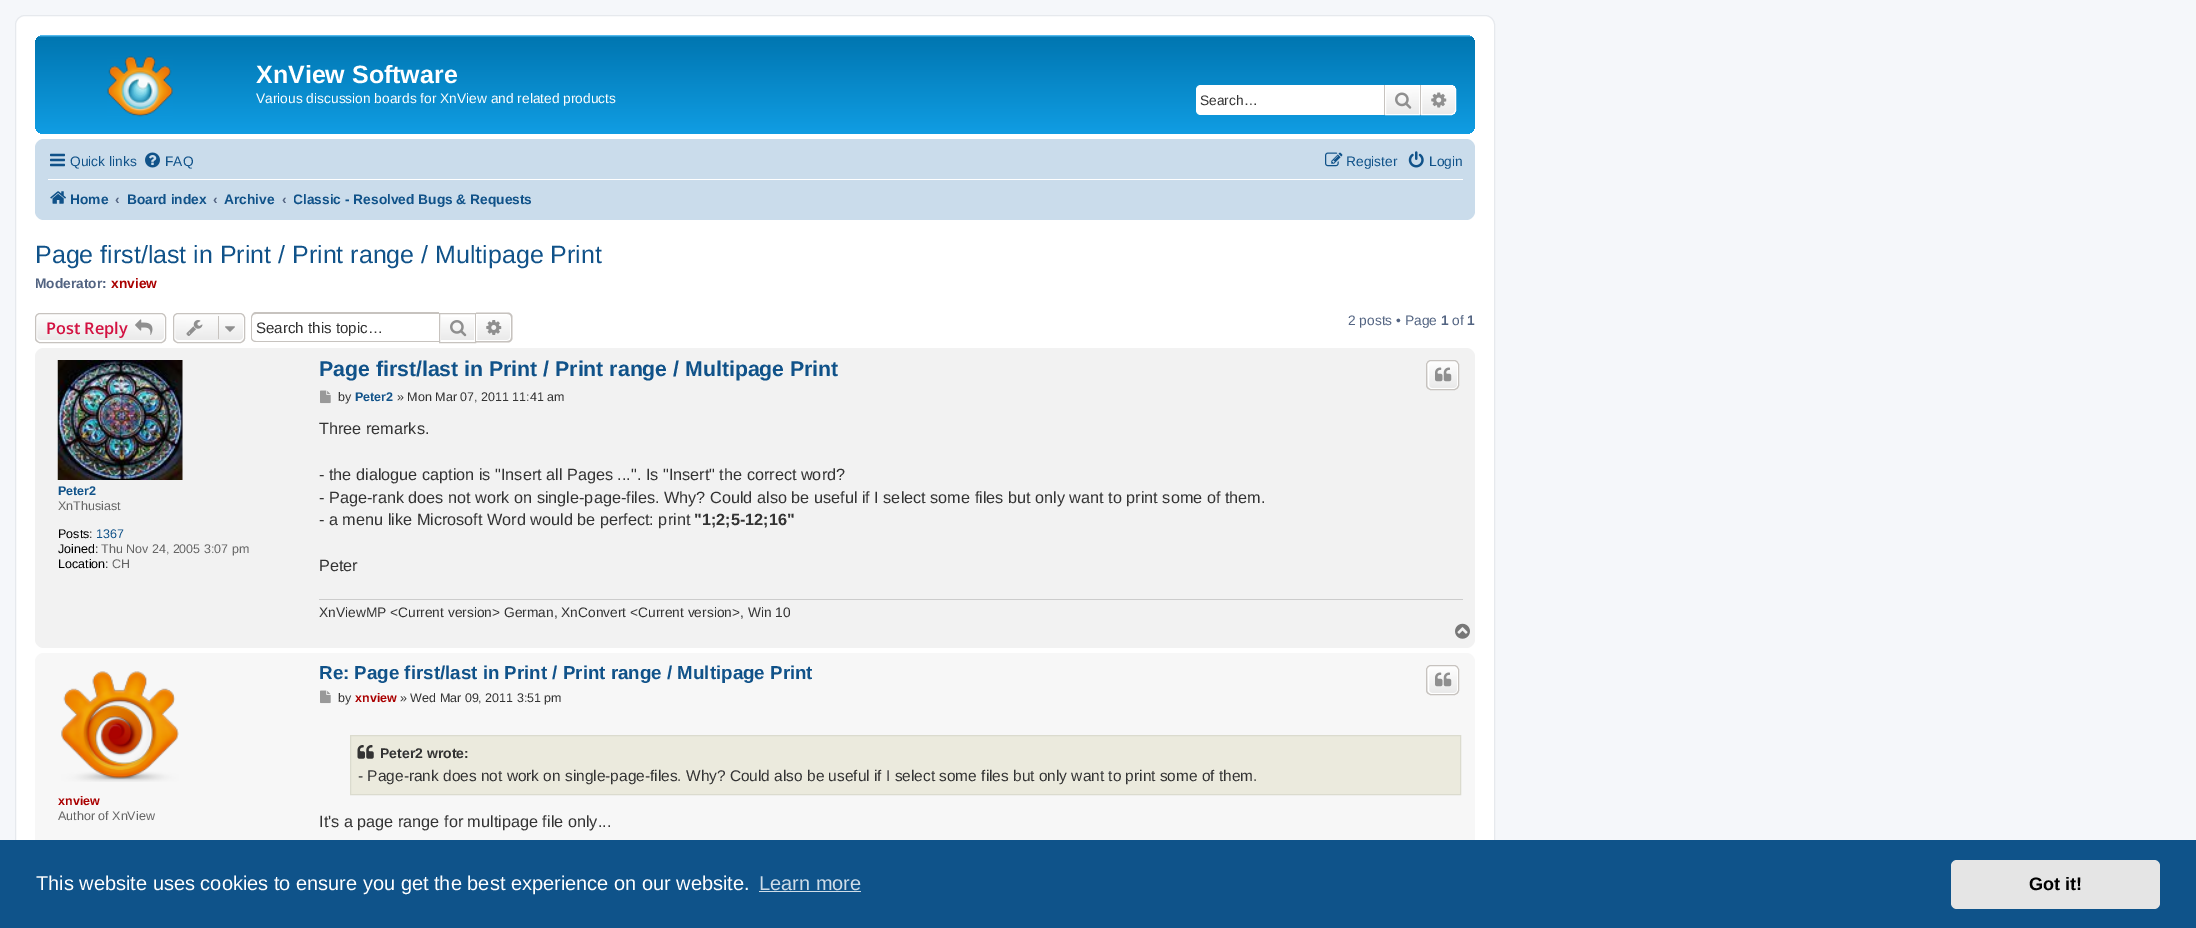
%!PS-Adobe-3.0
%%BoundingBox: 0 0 2196 928
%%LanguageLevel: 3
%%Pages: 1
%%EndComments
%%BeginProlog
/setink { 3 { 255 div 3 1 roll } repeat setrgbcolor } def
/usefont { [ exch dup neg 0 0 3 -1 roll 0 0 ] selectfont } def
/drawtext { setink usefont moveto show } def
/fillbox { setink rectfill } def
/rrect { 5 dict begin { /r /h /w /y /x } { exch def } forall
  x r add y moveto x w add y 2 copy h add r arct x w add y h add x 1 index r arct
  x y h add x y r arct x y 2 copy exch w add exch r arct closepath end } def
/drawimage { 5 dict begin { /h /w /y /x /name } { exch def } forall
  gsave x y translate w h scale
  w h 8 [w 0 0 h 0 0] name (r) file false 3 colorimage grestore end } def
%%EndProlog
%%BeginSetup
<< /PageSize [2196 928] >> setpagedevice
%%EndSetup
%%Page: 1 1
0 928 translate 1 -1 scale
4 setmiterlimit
0 0 2196 928 245 247 250 fillbox
255 255 255 setink
15.5 15.5 1479 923 9.5 rrect gsave fill grestore
230 233 237 setink
stroke
gsave 35 35 1440 99 9 rrect clip newpath
<< /ShadingType 2 /ColorSpace /DeviceRGB /Coords [755 35 755 150] /Extend [true true] /Function << /FunctionType 3 /Domain [0 1] /Functions [<< /FunctionType 2 /Domain [0 1] /C0 [0.416 0.808 1] /C1 [0 0.463 0.694] /N 1 >> << /FunctionType 2 /Domain [0 1] /C0 [0 0.463 0.694] /C1 [0.071 0.639 0.922] /N 1 >>] /Bounds [0.02] /Encode [0 1 0 1] >> >> shfill grestore
(assets/img1.rgb) 107 56 66 61 drawimage
(XnView Software) 256 83 /LiberationSans-Bold 25 255 255 255 drawtext
(Various discussion boards for XnView and related products) 256 103 /LiberationSans-Regular 13.75 255 255 255 drawtext
1201 85 moveto 1384 85 lineto 1384 115 lineto 1201 115 lineto 1198 115 1196 113 1196 110 curveto 1196 90 lineto 1196 87 1198 85 1201 85 curveto closepath fill
(Search…) 1200 105 /LiberationSans-Regular 13.75 51 51 51 drawtext
gsave 1386 86 moveto 1419 86 lineto 1419 114 lineto 1386 114 lineto closepath clip newpath
<< /ShadingType 2 /ColorSpace /DeviceRGB /Coords [1403 85 1403 115] /Extend [true true] /Function << /FunctionType 2 /Domain [0 1] /C0 [1 1 1] /C1 [0.914 0.914 0.914] /N 1 >> >> shfill grestore
255 255 255 setink
1385.5 85.5 34 29 rectstroke
1420 85 1 30 199 195 191 fillbox
1384 85 1 30 199 195 191 fillbox
(assets/img2.rgb) 1395 92 17 17 drawimage
gsave 1421.5 85.5 moveto 1451 85.5 lineto 1453.5 85.5 1455.5 87.5 1455.5 90 curveto 1455.5 110 lineto 1455.5 112.5 1453.5 114.5 1451 114.5 curveto 1421.5 114.5 lineto closepath clip newpath
<< /ShadingType 2 /ColorSpace /DeviceRGB /Coords [1439 85 1439 115] /Extend [true true] /Function << /FunctionType 2 /Domain [0 1] /C0 [1 1 1] /C1 [0.914 0.914 0.914] /N 1 >> >> shfill grestore
255 255 255 setink
1421.5 85.5 moveto 1451 85.5 lineto 1453.5 85.5 1455.5 87.5 1455.5 90 curveto 1455.5 110 lineto 1455.5 112.5 1453.5 114.5 1451 114.5 curveto 1421.5 114.5 lineto closepath stroke
(assets/img3.rgb) 1431 92 16 16 drawimage
202 220 235 setink
35 139 1440 81 9 rrect fill
(assets/img4.rgb) 50 153 15 14 drawimage
(Quick links) 70 166 /LiberationSans-Regular 13.75 16 82 137 drawtext
(assets/img5.rgb) 145 152 15 16 drawimage
(FAQ) 165 166 /LiberationSans-Regular 13.75 16 82 137 drawtext
(assets/img6.rgb) 1325 152 18 15 drawimage
(Register) 1346 166 /LiberationSans-Regular 13.75 16 82 137 drawtext
(assets/img7.rgb) 1408 151 16 17 drawimage
(Login) 1429 166 /LiberationSans-Regular 13.75 16 82 137 drawtext
48 179 1415 1 255 255 255 fillbox
(assets/img8.rgb) 50 191 16 13 drawimage
(Home) 70 204 /LiberationSans-Bold 13.75 16 82 137 drawtext
(‹) 115 204 /LiberationSans-Bold 13.75 83 100 130 drawtext
(Board index) 127 204 /LiberationSans-Bold 13.75 16 82 137 drawtext
(‹) 213 204 /LiberationSans-Bold 13.75 83 100 130 drawtext
(Archive) 224 204 /LiberationSans-Bold 13.75 16 82 137 drawtext
(‹) 282 204 /LiberationSans-Bold 13.75 83 100 130 drawtext
gsave
294 184 239 30 rectclip
(Classic - Resolved Bugs & Requests) 293 204 /LiberationSans-Bold 13.75 16 82 137 drawtext
grestore
(Page first/last in Print / Print range / Multipage Print) 35 263 /LiberationSans-Regular 25 16 82 137 drawtext
(Moderator:) 35 288 /LiberationSans-Bold 13.75 83 100 130 drawtext
(xnview) 111 288 /LiberationSans-Bold 13.75 170 0 0 drawtext
gsave
35 313 131 30 5 rrect clip newpath
gsave 35 314 moveto 166 314 lineto 166 341 lineto 35 341 lineto closepath clip newpath
<< /ShadingType 2 /ColorSpace /DeviceRGB /Coords [101 314 101 341] /Extend [true true] /Function << /FunctionType 2 /Domain [0 1] /C0 [1 1 1] /C1 [0.914 0.914 0.914] /N 1 >> >> shfill grestore
grestore
255 255 255 setink
36.5 314.5 128 26 3.5 rrect stroke
199 195 191 setink
35.5 313.5 130 29 4.5 rrect stroke
(Post Reply) 46 334 /OpenSans-SemiBold 16.25 211 17 65 drawtext
(assets/img9.rgb) 135 319 18 16 drawimage
gsave
173 313 72 30 5 rrect clip newpath
gsave 173 314 moveto 245 314 lineto 245 341 lineto 173 341 lineto closepath clip newpath
<< /ShadingType 2 /ColorSpace /DeviceRGB /Coords [209 314 209 341] /Extend [true true] /Function << /FunctionType 2 /Domain [0 1] /C0 [1 1 1] /C1 [0.914 0.914 0.914] /N 1 >> >> shfill grestore
grestore
255 255 255 setink
174.5 314.5 69 26 3.5 rrect stroke
199 195 191 setink
173.5 313.5 71 29 4.5 rrect stroke
(assets/img10.rgb) 186 320 17 16 drawimage
218 316 1 23 199 195 191 fillbox
(assets/img11.rgb) 225 326 10 6 drawimage
256 312 moveto 439 312 lineto 439 342 lineto 256 342 lineto 253 342 251 340 251 338 curveto 251 318 lineto 251 315 253 312 256 312 curveto closepath 256 314 moveto 439 314 lineto 439 341 lineto 256 341 lineto 254 341 252 340 252 338 curveto 252 318 lineto 252 315 254 314 256 314 curveto closepath eofill
(Search this topic…) 256 333 /LiberationSans-Regular 15.1 51 51 51 drawtext
gsave 441 317 moveto 474 317 lineto 474 340 lineto 441 340 lineto closepath clip newpath
<< /ShadingType 2 /ColorSpace /DeviceRGB /Coords [458 314 458 341] /Extend [true true] /Function << /FunctionType 2 /Domain [0 1] /C0 [1 1 1] /C1 [0.914 0.914 0.914] /N 1 >> >> shfill grestore
199 195 191 setink
439.5 313.5 36 29 rectstroke
(assets/img12.rgb) 450 320 17 17 drawimage
gsave 476.5 314.5 moveto 507 314.5 lineto 509 314.5 510.5 316 510.5 318 curveto 510.5 337 lineto 510.5 339 509 340.5 507 340.5 curveto 476.5 340.5 lineto closepath clip newpath
<< /ShadingType 2 /ColorSpace /DeviceRGB /Coords [494 314 494 341] /Extend [true true] /Function << /FunctionType 2 /Domain [0 1] /C0 [1 1 1] /C1 [0.914 0.914 0.914] /N 1 >> >> shfill grestore
255 255 255 setink
476.5 314.5 moveto 507 314.5 lineto 509 314.5 510.5 316 510.5 318 curveto 510.5 337 lineto 510.5 339 509 340.5 507 340.5 curveto 476.5 340.5 lineto closepath stroke
199 195 191 setink
476 312.5 moveto 507.5 312.5 lineto 510.5 312.5 512.5 314.5 512.5 317.5 curveto 512.5 337.5 lineto 512.5 340.5 510.5 342.5 507.5 342.5 curveto 476 342.5 lineto closepath 476 314 moveto 507.5 314 lineto 509.5 314 511 315.5 511 317.5 curveto 511 337.5 lineto 511 339.5 509.5 341 507.5 341 curveto 476 341 lineto closepath eofill
(assets/img13.rgb) 486 320 16 15 drawimage
(2 posts • Page) 1348 325 /LiberationSans-Regular 13.75 83 100 130 drawtext
(1) 1441 325 /LiberationSans-Bold 13.75 83 100 130 drawtext
(of) 1452 325 /LiberationSans-Regular 13.75 83 100 130 drawtext
(1) 1467 325 /LiberationSans-Bold 13.75 83 100 130 drawtext
242 242 242 setink
35 348 1440 300 9 rrect fill
(assets/img14.rgb) 57 360 126 120 drawimage
(Peter2) 58 495 /LiberationSans-Bold 12.5 16 82 137 drawtext
(XnThusiast) 58 510 /LiberationSans-Regular 12.5 102 102 102 drawtext
(Posts:) 58 538 /LiberationSans-Regular 12.5 0 0 0 drawtext
(1367) 96 538 /LiberationSans-Regular 12.5 16 82 137 drawtext
(Joined:) 58 553 /LiberationSans-Regular 12.5 0 0 0 drawtext
(Thu Nov 24, 2005 3:07 pm) 101 553 /LiberationSans-Regular 12.5 102 102 102 drawtext
(Location:) 58 568 /LiberationSans-Regular 12.5 0 0 0 drawtext
(CH) 112 568 /LiberationSans-Regular 12.5 102 102 102 drawtext
(Page first/last in Print / Print range / Multipage Print) 319 376 /LiberationSans-Bold 21.25 16 82 137 drawtext
gsave
1426 360 33 30 5 rrect clip newpath
gsave 1426 361 moveto 1459 361 lineto 1459 389 lineto 1426 389 lineto closepath clip newpath
<< /ShadingType 2 /ColorSpace /DeviceRGB /Coords [1443 361 1443 389] /Extend [true true] /Function << /FunctionType 2 /Domain [0 1] /C0 [1 1 1] /C1 [0.914 0.914 0.914] /N 1 >> >> shfill grestore
grestore
255 255 255 setink
1428.5 361.5 29 27 3.5 rrect stroke
199 195 191 setink
1426.5 360.5 32 29 4.5 rrect stroke
(assets/img15.rgb) 1435 367 17 15 drawimage
(assets/img16.rgb) 320 390 11 14 drawimage
(by) 338 401 /LiberationSans-Regular 12.5 51 51 51 drawtext
(Peter2) 355 401 /LiberationSans-Bold 12.5 16 82 137 drawtext
(» Mon Mar 07, 2011 11:41 am) 397 401 /LiberationSans-Regular 12.5 51 51 51 drawtext
(Three remarks.) 319 434 /LiberationSans-Regular 16.25 51 51 51 drawtext
(- the dialogue caption is "Insert all Pages ...". Is "Insert" the correct word?) 319 480 /LiberationSans-Regular 16.25 51 51 51 drawtext
(- Page-rank does not work on single-page-files. Why? Could also be useful if I select some files but only want to print some of them.) 319 503 /LiberationSans-Regular 16.25 51 51 51 drawtext
(- a menu like Microsoft Word would be perfect: print) 319 525 /LiberationSans-Regular 16.25 51 51 51 drawtext
("1;2;5-12;16") 694 525 /LiberationSans-Bold 16.25 51 51 51 drawtext
(Peter) 319 571 /LiberationSans-Regular 16.25 51 51 51 drawtext
319 599 1144 1 204 204 204 fillbox
(XnViewMP <Current version> German, XnConvert <Current version>, Win 10) 319 617 /LiberationSans-Regular 13.75 51 51 51 drawtext
(assets/img17.rgb) 1455 623 15 16 drawimage
247 247 247 setink
35 653 1440 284 9 rrect fill
(assets/img18.rgb) 61 671 118 111 drawimage
(xnview) 58 805 /LiberationSans-Bold 12.5 170 0 0 drawtext
(Author of XnView) 58 820 /LiberationSans-Regular 12.5 102 102 102 drawtext
(Re: Page first/last in Print / Print range / Multipage Print) 319 679 /LiberationSans-Bold 18.75 16 82 137 drawtext
gsave
1426 665 33 30 5 rrect clip newpath
gsave 1426 666 moveto 1459 666 lineto 1459 694 lineto 1426 694 lineto closepath clip newpath
<< /ShadingType 2 /ColorSpace /DeviceRGB /Coords [1443 666 1443 694] /Extend [true true] /Function << /FunctionType 2 /Domain [0 1] /C0 [1 1 1] /C1 [0.914 0.914 0.914] /N 1 >> >> shfill grestore
grestore
255 255 255 setink
1428.5 666.5 29 27 3.5 rrect stroke
199 195 191 setink
1426.5 665.5 32 29 4.5 rrect stroke
(assets/img15.rgb) 1435 672 17 15 drawimage
(assets/img19.rgb) 320 690 11 14 drawimage
(by) 338 702 /LiberationSans-Regular 12.5 51 51 51 drawtext
(xnview) 355 702 /LiberationSans-Bold 12.5 170 0 0 drawtext
(» Wed Mar 09, 2011 3:51 pm) 400 702 /LiberationSans-Regular 12.5 51 51 51 drawtext
235 234 221 setink
350.5 735.5 moveto 1460.5 735.5 lineto 1460.5 794.5 lineto 350.5 794.5 lineto closepath gsave fill grestore
219 219 206 setink
stroke
(assets/img20.rgb) 357 745 17 14 drawimage
(Peter2 wrote:) 380 758 /LiberationSans-Bold 14 51 51 51 drawtext
(- Page-rank does not work on single-page-files. Why? Could also be useful if I select some files but only want to print some of them.) 358 781 /LiberationSans-Regular 15.45 51 51 51 drawtext
(It's a page range for multipage file only...) 319 827 /LiberationSans-Regular 16.25 51 51 51 drawtext
0 840 2196 88 15 83 138 fillbox
(This website uses cookies to ensure you get the best experience on our website.) 36 890 /LiberationSans-Regular 20 255 255 255 drawtext
(Learn more) 759 890 /LiberationSans-Regular 20 207 221 232 drawtext
759 891 102 1 207 221 232 fillbox
229 229 229 setink
1951 860 209 49 6 rrect fill
(Got it!) 2029 890 /LiberationSans-Bold 18 0 0 0 drawtext
showpage
%%EOF
